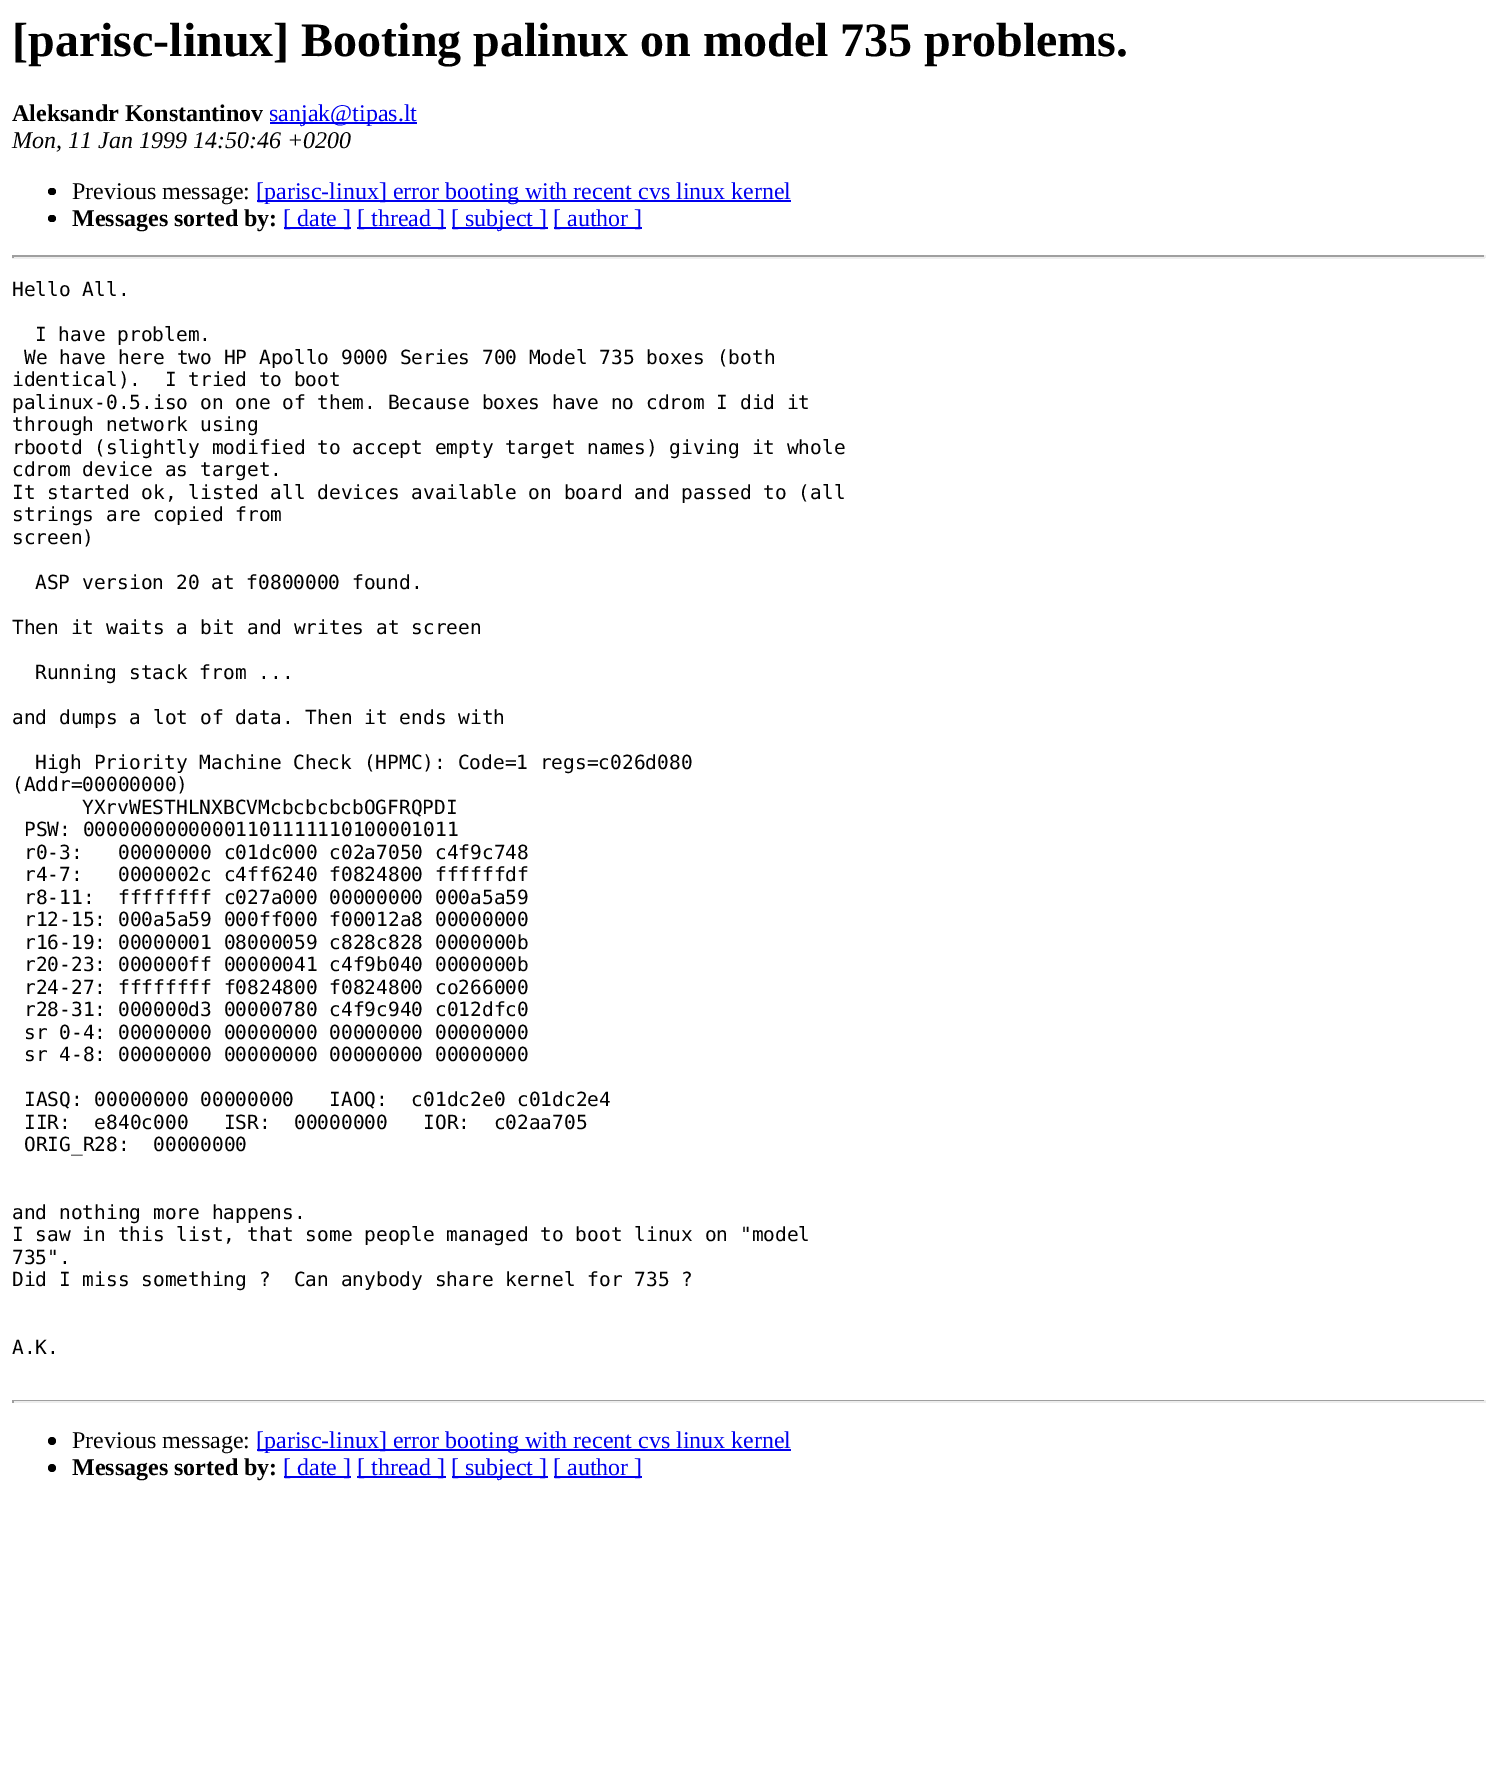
%!PS-Adobe-3.0
%%BoundingBox: 0 0 1497 1768
%%LanguageLevel: 3
%%Pages: 1
%%EndComments
%%BeginProlog
/setink { 3 { 255 div 3 1 roll } repeat setrgbcolor } def
/usefont { [ exch dup neg 0 0 3 -1 roll 0 0 ] selectfont } def
/drawtext { setink usefont moveto show } def
/fillbox { setink rectfill } def
/disc { newpath 0 360 arc closepath } def
/rrect { 5 dict begin { /r /h /w /y /x } { exch def } forall
  x r add y moveto x w add y 2 copy h add r arct x w add y h add x 1 index r arct
  x y h add x y r arct x y 2 copy exch w add exch r arct closepath end } def
%%EndProlog
%%BeginSetup
<< /PageSize [1497 1768] >> setpagedevice
%%EndSetup
%%Page: 1 1
0 1768 translate 1 -1 scale
4 setmiterlimit
0 0 1497 1768 255 255 255 fillbox
([parisc-linux] Booting palinux on model 735 problems.) 12 56 /LiberationSerif-Bold 48 0 0 0 drawtext
(Aleksandr Konstantinov) 12 121 /LiberationSerif-Bold 24 0 0 0 drawtext
270 122 147 2 0 0 238 fillbox
(sanjak@tipas.lt) 269 121 /LiberationSerif-Regular 24 0 0 238 drawtext
(Mon, 11 Jan 1999 14:50:46 +0200) 12 148 /LiberationSerif-Italic 24 0 0 0 drawtext
48 188 8 7 3.5 rrect fill
(Previous message:) 72 199 /LiberationSerif-Regular 24 0 0 0 drawtext
257 200 534 2 0 0 238 fillbox
([parisc-linux] error booting with recent cvs linux kernel) 256 199 /LiberationSerif-Regular 24 0 0 238 drawtext
0 0 0 setink
48 215 8 7 3.5 rrect fill
(Messages sorted by:) 72 226 /LiberationSerif-Bold 24 0 0 0 drawtext
284 227 67 2 0 0 238 fillbox
([ date ]) 283 226 /LiberationSerif-Regular 24 0 0 238 drawtext
357 227 89 2 0 0 238 fillbox
([ thread ]) 357 226 /LiberationSerif-Regular 24 0 0 238 drawtext
452 227 96 2 0 0 238 fillbox
([ subject ]) 451 226 /LiberationSerif-Regular 24 0 0 238 drawtext
554 227 88 2 0 0 238 fillbox
([ author ]) 553 226 /LiberationSerif-Regular 24 0 0 238 drawtext
12 255 1473 2 159 159 159 fillbox
1484 255 2 3 238 238 238 fillbox
12 257 1473 2 238 238 238 fillbox
12 255 2 3 159 159 159 fillbox
(Hello All.) 12 296 /DejaVuSansMono-Regular 19.5 0 0 0 drawtext
(I have problem.) 35 341 /DejaVuSansMono-Regular 19.5 0 0 0 drawtext
(We have here two HP Apollo 9000 Series 700 Model 735 boxes \(both) 24 364 /DejaVuSansMono-Regular 19.5 0 0 0 drawtext
(identical\).  I tried to boot) 12 386 /DejaVuSansMono-Regular 19.5 0 0 0 drawtext
(palinux-0.5.iso on one of them. Because boxes have no cdrom I did it) 12 409 /DejaVuSansMono-Regular 19.5 0 0 0 drawtext
(through network using) 12 431 /DejaVuSansMono-Regular 19.5 0 0 0 drawtext
(rbootd \(slightly modified to accept empty target names\) giving it whole) 12 454 /DejaVuSansMono-Regular 19.5 0 0 0 drawtext
(cdrom device as target.) 12 476 /DejaVuSansMono-Regular 19.5 0 0 0 drawtext
(It started ok, listed all devices available on board and passed to \(all) 12 499 /DejaVuSansMono-Regular 19.5 0 0 0 drawtext
(strings are copied from) 12 521 /DejaVuSansMono-Regular 19.5 0 0 0 drawtext
(screen\)) 12 544 /DejaVuSansMono-Regular 19.5 0 0 0 drawtext
(ASP version 20 at f0800000 found.) 35 589 /DejaVuSansMono-Regular 19.5 0 0 0 drawtext
(Then it waits a bit and writes at screen) 12 634 /DejaVuSansMono-Regular 19.5 0 0 0 drawtext
(Running stack from ...) 35 679 /DejaVuSansMono-Regular 19.5 0 0 0 drawtext
(and dumps a lot of data. Then it ends with) 12 724 /DejaVuSansMono-Regular 19.5 0 0 0 drawtext
(High Priority Machine Check \(HPMC\): Code=1 regs=c026d080) 35 769 /DejaVuSansMono-Regular 19.5 0 0 0 drawtext
(\(Addr=00000000\)) 12 791 /DejaVuSansMono-Regular 19.5 0 0 0 drawtext
(YXrvWESTHLNXBCVMcbcbcbcbOGFRQPDI) 82 814 /DejaVuSansMono-Regular 19.5 0 0 0 drawtext
(PSW: 00000000000001101111110100001011) 24 836 /DejaVuSansMono-Regular 19.5 0 0 0 drawtext
(r0-3:   00000000 c01dc000 c02a7050 c4f9c748) 24 859 /DejaVuSansMono-Regular 19.5 0 0 0 drawtext
(r4-7:   0000002c c4ff6240 f0824800 ffffffdf) 24 881 /DejaVuSansMono-Regular 19.5 0 0 0 drawtext
(r8-11:  ffffffff c027a000 00000000 000a5a59) 24 904 /DejaVuSansMono-Regular 19.5 0 0 0 drawtext
(r12-15: 000a5a59 000ff000 f00012a8 00000000) 24 926 /DejaVuSansMono-Regular 19.5 0 0 0 drawtext
(r16-19: 00000001 08000059 c828c828 0000000b) 24 949 /DejaVuSansMono-Regular 19.5 0 0 0 drawtext
(r20-23: 000000ff 00000041 c4f9b040 0000000b) 24 971 /DejaVuSansMono-Regular 19.5 0 0 0 drawtext
(r24-27: ffffffff f0824800 f0824800 co266000) 24 994 /DejaVuSansMono-Regular 19.5 0 0 0 drawtext
(r28-31: 000000d3 00000780 c4f9c940 c012dfc0) 24 1016 /DejaVuSansMono-Regular 19.5 0 0 0 drawtext
(sr 0-4: 00000000 00000000 00000000 00000000) 24 1039 /DejaVuSansMono-Regular 19.5 0 0 0 drawtext
(sr 4-8: 00000000 00000000 00000000 00000000) 24 1061 /DejaVuSansMono-Regular 19.5 0 0 0 drawtext
(IASQ: 00000000 00000000   IAOQ:  c01dc2e0 c01dc2e4) 24 1106 /DejaVuSansMono-Regular 19.5 0 0 0 drawtext
(IIR:  e840c000   ISR:  00000000   IOR:  c02aa705) 24 1129 /DejaVuSansMono-Regular 19.5 0 0 0 drawtext
(ORIG_R28:  00000000) 24 1151 /DejaVuSansMono-Regular 19.5 0 0 0 drawtext
(and nothing more happens.) 12 1219 /DejaVuSansMono-Regular 19.5 0 0 0 drawtext
(I saw in this list, that some people managed to boot linux on "model) 12 1241 /DejaVuSansMono-Regular 19.5 0 0 0 drawtext
(735".) 12 1264 /DejaVuSansMono-Regular 19.5 0 0 0 drawtext
(Did I miss something ?  Can anybody share kernel for 735 ?) 12 1286 /DejaVuSansMono-Regular 19.5 0 0 0 drawtext
(A.K.) 12 1354 /DejaVuSansMono-Regular 19.5 0 0 0 drawtext
12 1400 1473 1 159 159 159 fillbox
1484 1400 2 3 238 238 238 fillbox
12 1401 1473 2 238 238 238 fillbox
12 1400 2 3 159 159 159 fillbox
0 0 0 setink
52 1441 4 disc fill
(Previous message:) 72 1448 /LiberationSerif-Regular 24 0 0 0 drawtext
257 1449 534 2 0 0 238 fillbox
([parisc-linux] error booting with recent cvs linux kernel) 256 1448 /LiberationSerif-Regular 24 0 0 238 drawtext
0 0 0 setink
52 1468 4 disc fill
(Messages sorted by:) 72 1475 /LiberationSerif-Bold 24 0 0 0 drawtext
284 1476 67 2 0 0 238 fillbox
([ date ]) 283 1475 /LiberationSerif-Regular 24 0 0 238 drawtext
357 1476 89 2 0 0 238 fillbox
([ thread ]) 357 1475 /LiberationSerif-Regular 24 0 0 238 drawtext
452 1476 96 2 0 0 238 fillbox
([ subject ]) 451 1475 /LiberationSerif-Regular 24 0 0 238 drawtext
554 1476 88 2 0 0 238 fillbox
([ author ]) 553 1475 /LiberationSerif-Regular 24 0 0 238 drawtext
showpage
%%EOF
